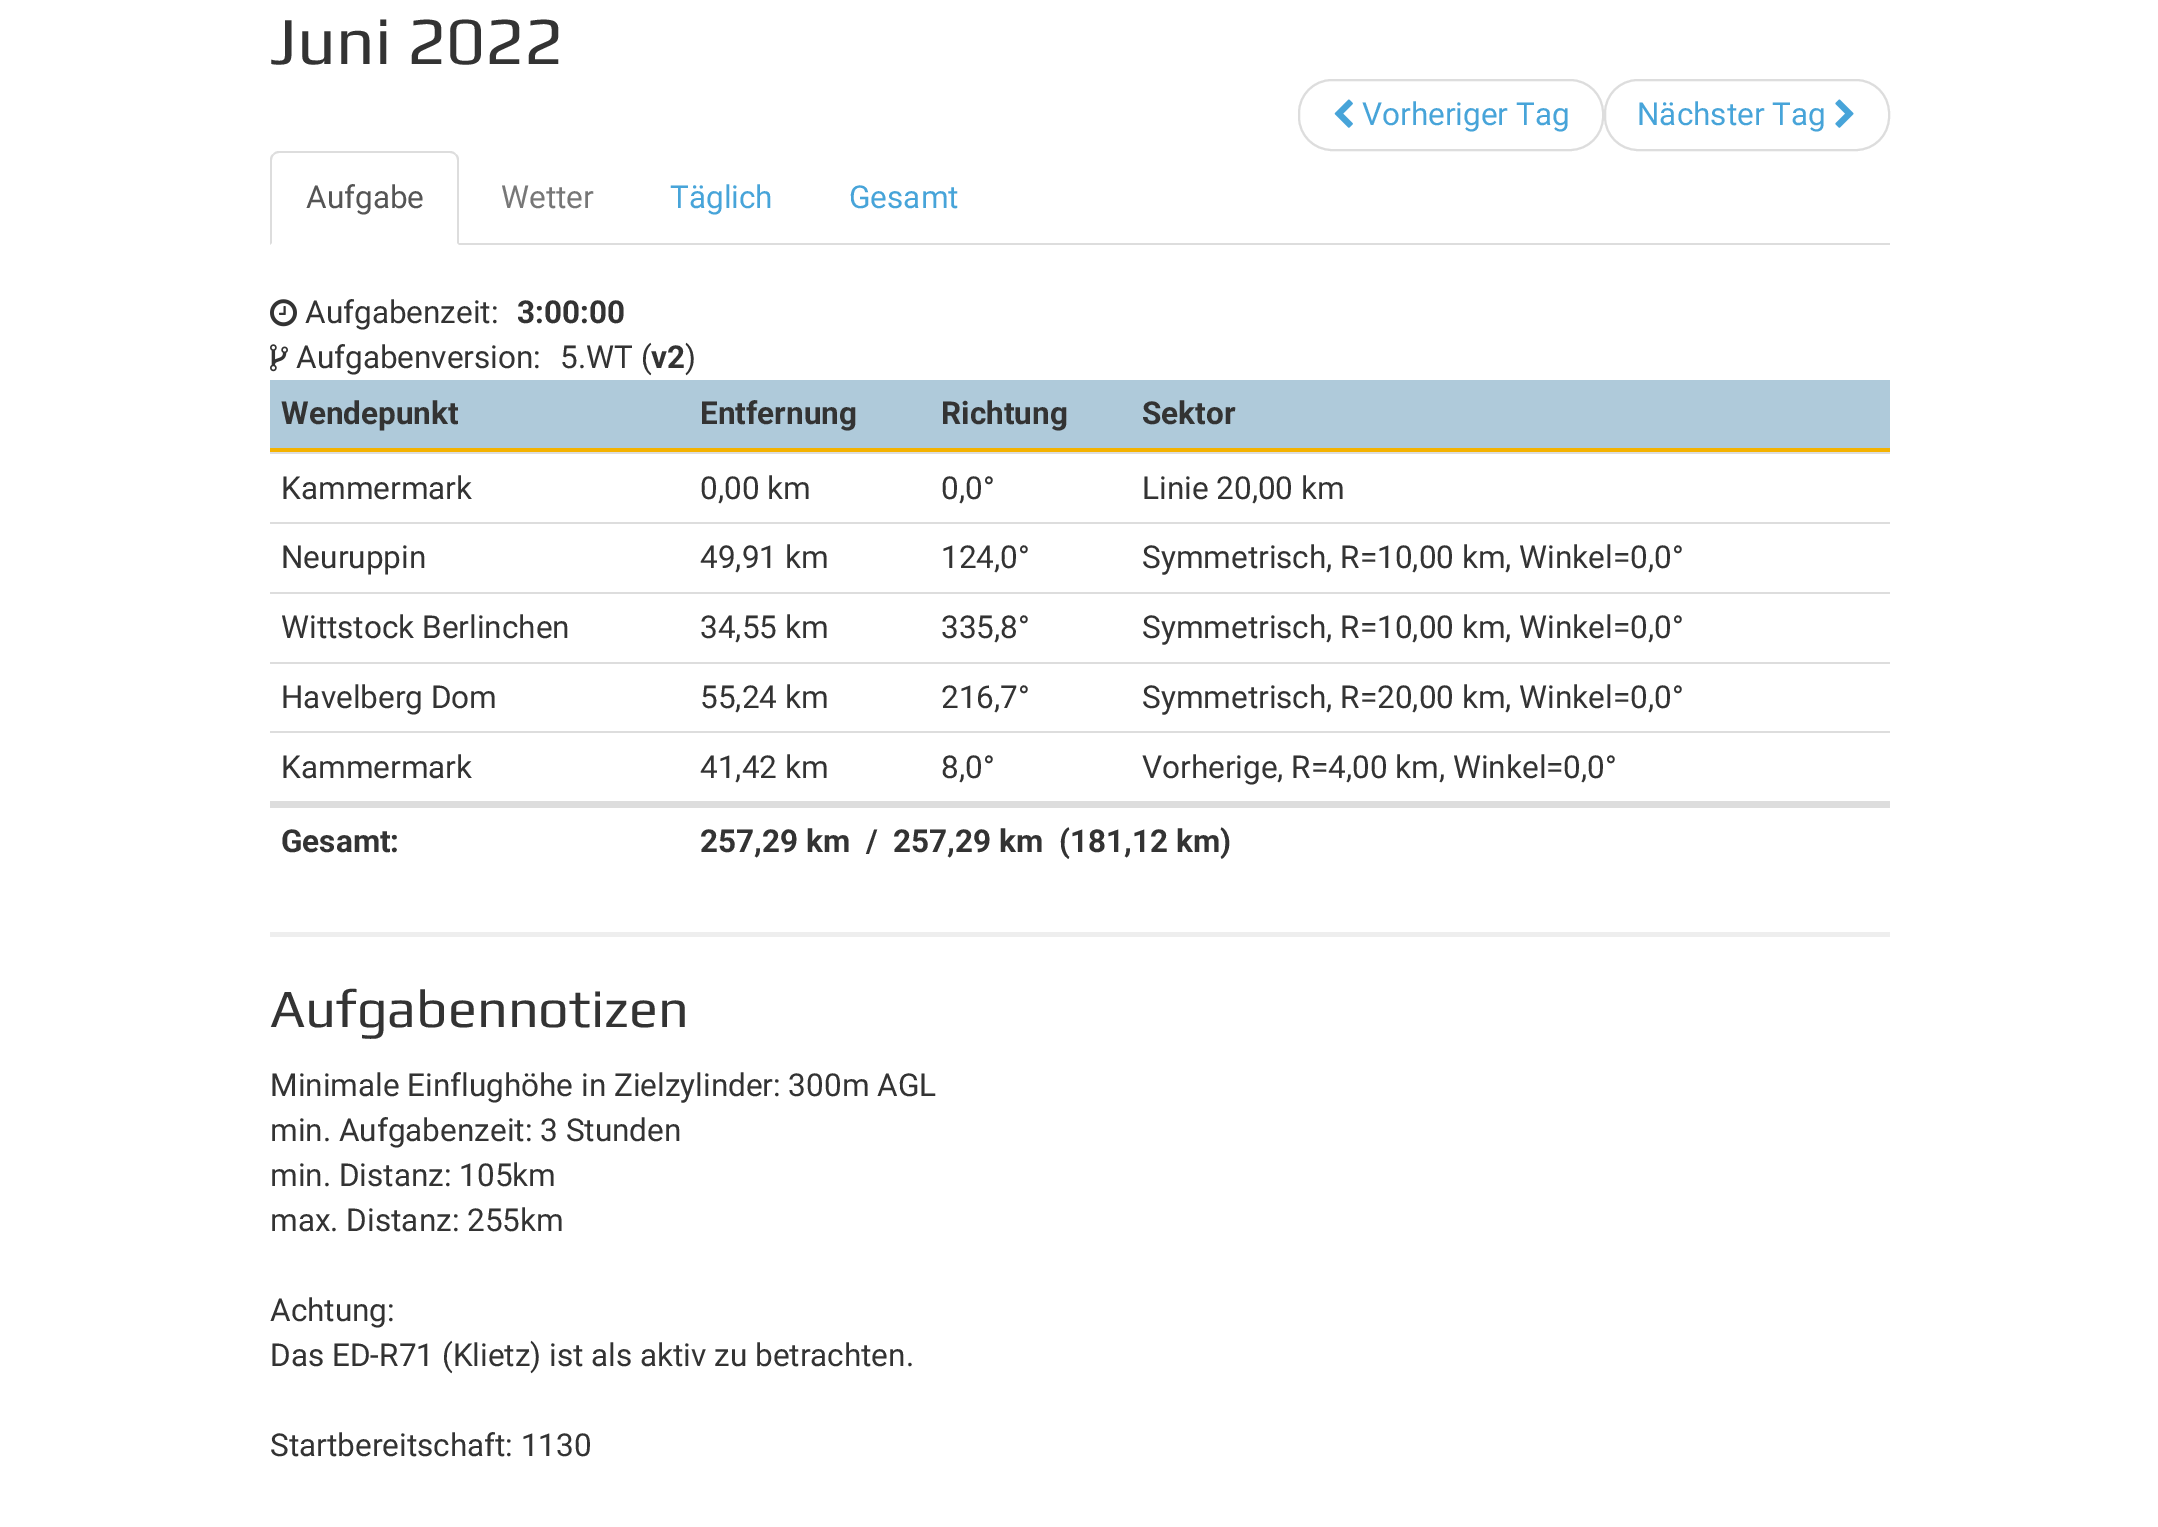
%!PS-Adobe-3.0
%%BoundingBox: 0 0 2158 1527
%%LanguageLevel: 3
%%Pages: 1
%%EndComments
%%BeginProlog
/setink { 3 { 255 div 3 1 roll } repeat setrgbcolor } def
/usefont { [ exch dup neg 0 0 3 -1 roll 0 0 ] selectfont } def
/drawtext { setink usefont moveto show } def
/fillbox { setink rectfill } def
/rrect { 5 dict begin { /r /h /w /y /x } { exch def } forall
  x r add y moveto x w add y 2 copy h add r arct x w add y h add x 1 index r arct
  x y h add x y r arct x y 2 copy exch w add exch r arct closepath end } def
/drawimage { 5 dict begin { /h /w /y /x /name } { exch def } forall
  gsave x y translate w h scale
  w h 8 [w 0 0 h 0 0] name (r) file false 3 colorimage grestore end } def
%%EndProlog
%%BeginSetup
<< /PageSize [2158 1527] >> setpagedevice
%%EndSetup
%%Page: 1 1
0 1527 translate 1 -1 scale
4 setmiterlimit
0 0 2158 1527 255 255 255 fillbox
(Juni 2022) 270 64 /Play-Regular 67.5 51 51 51 drawtext
221 221 221 setink
2 setlinewidth
1299 80 304 70 33 rrect stroke
(assets/img1.rgb) 1334 99 19 29 drawimage
(Vorheriger Tag) 1362 125 /Roboto-Regular 31.5 71 164 217 drawtext
221 221 221 setink
1605 80 284 70 33 rrect stroke
(Nächster Tag) 1637 125 /Roboto-Regular 31.5 71 164 217 drawtext
(assets/img2.rgb) 1835 99 19 29 drawimage
459 243 1431 2 221 221 221 fillbox
279 151 moveto 277 151 274 152 273 154 curveto 274 155 lineto 275 154 277 153 279 153 curveto 450 153 lineto 452 153 454 154 455 155 curveto 456 154 lineto 455 152 452 151 450 151 curveto closepath fill
456 154 moveto 458 155 459 157 459 160 curveto 459 245 lineto 457 243 lineto 457 160 lineto 457 158 456 156 455 155 curveto closepath fill
270 160 moveto 270 245 lineto 272 243 lineto 272 160 lineto 272 158 273 156 274 155 curveto 273 154 lineto 271 155 270 157 270 160 curveto closepath fill
(Aufgabe) 306 208 /Roboto-Regular 31.5 85 85 85 drawtext
(Wetter) 501 208 /Roboto-Regular 31.5 119 119 119 drawtext
(Täglich) 670 208 /Roboto-Regular 31.5 71 164 217 drawtext
(Gesamt) 849 208 /Roboto-Regular 31.5 71 164 217 drawtext
(assets/img3.rgb) 270 299 27 28 drawimage
(Aufgabenzeit:) 305 323 /Roboto-Regular 31.5 51 51 51 drawtext
(3:00:00) 517 323 /Roboto-Bold 31.5 51 51 51 drawtext
(assets/img4.rgb) 270 344 18 28 drawimage
(Aufgabenversion:) 296 368 /Roboto-Regular 31.5 51 51 51 drawtext
(5.WT \() 560 368 /Roboto-Regular 31.5 51 51 51 drawtext
(v2) 651 368 /Roboto-Bold 31.5 51 51 51 drawtext
(\)) 685 368 /Roboto-Regular 31.5 51 51 51 drawtext
270 380 1620 68 175 202 218 fillbox
270 448 1620 4 244 178 0 fillbox
(Wendepunkt) 281 424 /Roboto-Bold 31.5 51 51 51 drawtext
(Entfernung) 700 424 /Roboto-Bold 31.5 51 51 51 drawtext
(Richtung) 941 424 /Roboto-Bold 31.5 51 51 51 drawtext
(Sektor) 1142 424 /Roboto-Bold 31.5 51 51 51 drawtext
270 452 1620 2 221 221 221 fillbox
(Kammermark) 281 499 /Roboto-Regular 31.5 51 51 51 drawtext
(0,00 km) 700 499 /Roboto-Regular 31.5 51 51 51 drawtext
(0,0°) 941 499 /Roboto-Regular 31.5 51 51 51 drawtext
(Linie 20,00 km) 1142 499 /Roboto-Regular 31.5 51 51 51 drawtext
270 522 1620 2 221 221 221 fillbox
(Neuruppin) 281 568 /Roboto-Regular 31.5 51 51 51 drawtext
(49,91 km) 700 568 /Roboto-Regular 31.5 51 51 51 drawtext
(124,0°) 941 568 /Roboto-Regular 31.5 51 51 51 drawtext
(Symmetrisch, R=10,00 km, Winkel=0,0°) 1142 568 /Roboto-Regular 31.5 51 51 51 drawtext
270 592 1620 2 221 221 221 fillbox
(Wittstock Berlinchen) 281 638 /Roboto-Regular 31.5 51 51 51 drawtext
(34,55 km) 700 638 /Roboto-Regular 31.5 51 51 51 drawtext
(335,8°) 941 638 /Roboto-Regular 31.5 51 51 51 drawtext
(Symmetrisch, R=10,00 km, Winkel=0,0°) 1142 638 /Roboto-Regular 31.5 51 51 51 drawtext
270 662 1620 2 221 221 221 fillbox
(Havelberg Dom) 281 708 /Roboto-Regular 31.5 51 51 51 drawtext
(55,24 km) 700 708 /Roboto-Regular 31.5 51 51 51 drawtext
(216,7°) 941 708 /Roboto-Regular 31.5 51 51 51 drawtext
(Symmetrisch, R=20,00 km, Winkel=0,0°) 1142 708 /Roboto-Regular 31.5 51 51 51 drawtext
270 731 1620 2 221 221 221 fillbox
(Kammermark) 281 778 /Roboto-Regular 31.5 51 51 51 drawtext
(41,42 km) 700 778 /Roboto-Regular 31.5 51 51 51 drawtext
(8,0°) 941 778 /Roboto-Regular 31.5 51 51 51 drawtext
(Vorherige, R=4,00 km, Winkel=0,0°) 1142 778 /Roboto-Regular 31.5 51 51 51 drawtext
270 801 1620 7 221 221 221 fillbox
(Gesamt:) 281 852 /Roboto-Bold 31.5 51 51 51 drawtext
(257,29 km) 700 852 /Roboto-Bold 31.5 51 51 51 drawtext
(/) 866 852 /Roboto-Bold 31.5 51 51 51 drawtext
(257,29 km) 893 852 /Roboto-Bold 31.5 51 51 51 drawtext
(\(181,12 km\)) 1059 852 /Roboto-Bold 31.5 51 51 51 drawtext
270 932 1620 5 238 238 238 fillbox
(Aufgabennotizen) 270 1027 /Play-Regular 54 51 51 51 drawtext
(Minimale Einflughöhe in Zielzylinder: 300m AGL) 270 1096 /Roboto-Regular 31.5 51 51 51 drawtext
(min. Aufgabenzeit: 3 Stunden) 270 1141 /Roboto-Regular 31.5 51 51 51 drawtext
(min. Distanz: 105km) 270 1186 /Roboto-Regular 31.5 51 51 51 drawtext
(max. Distanz: 255km) 270 1231 /Roboto-Regular 31.5 51 51 51 drawtext
(Achtung:) 270 1321 /Roboto-Regular 31.5 51 51 51 drawtext
(Das ED-R71 \(Klietz\) ist als aktiv zu betrachten.) 270 1366 /Roboto-Regular 31.5 51 51 51 drawtext
(Startbereitschaft: 1130) 270 1456 /Roboto-Regular 31.5 51 51 51 drawtext
showpage
%%EOF
